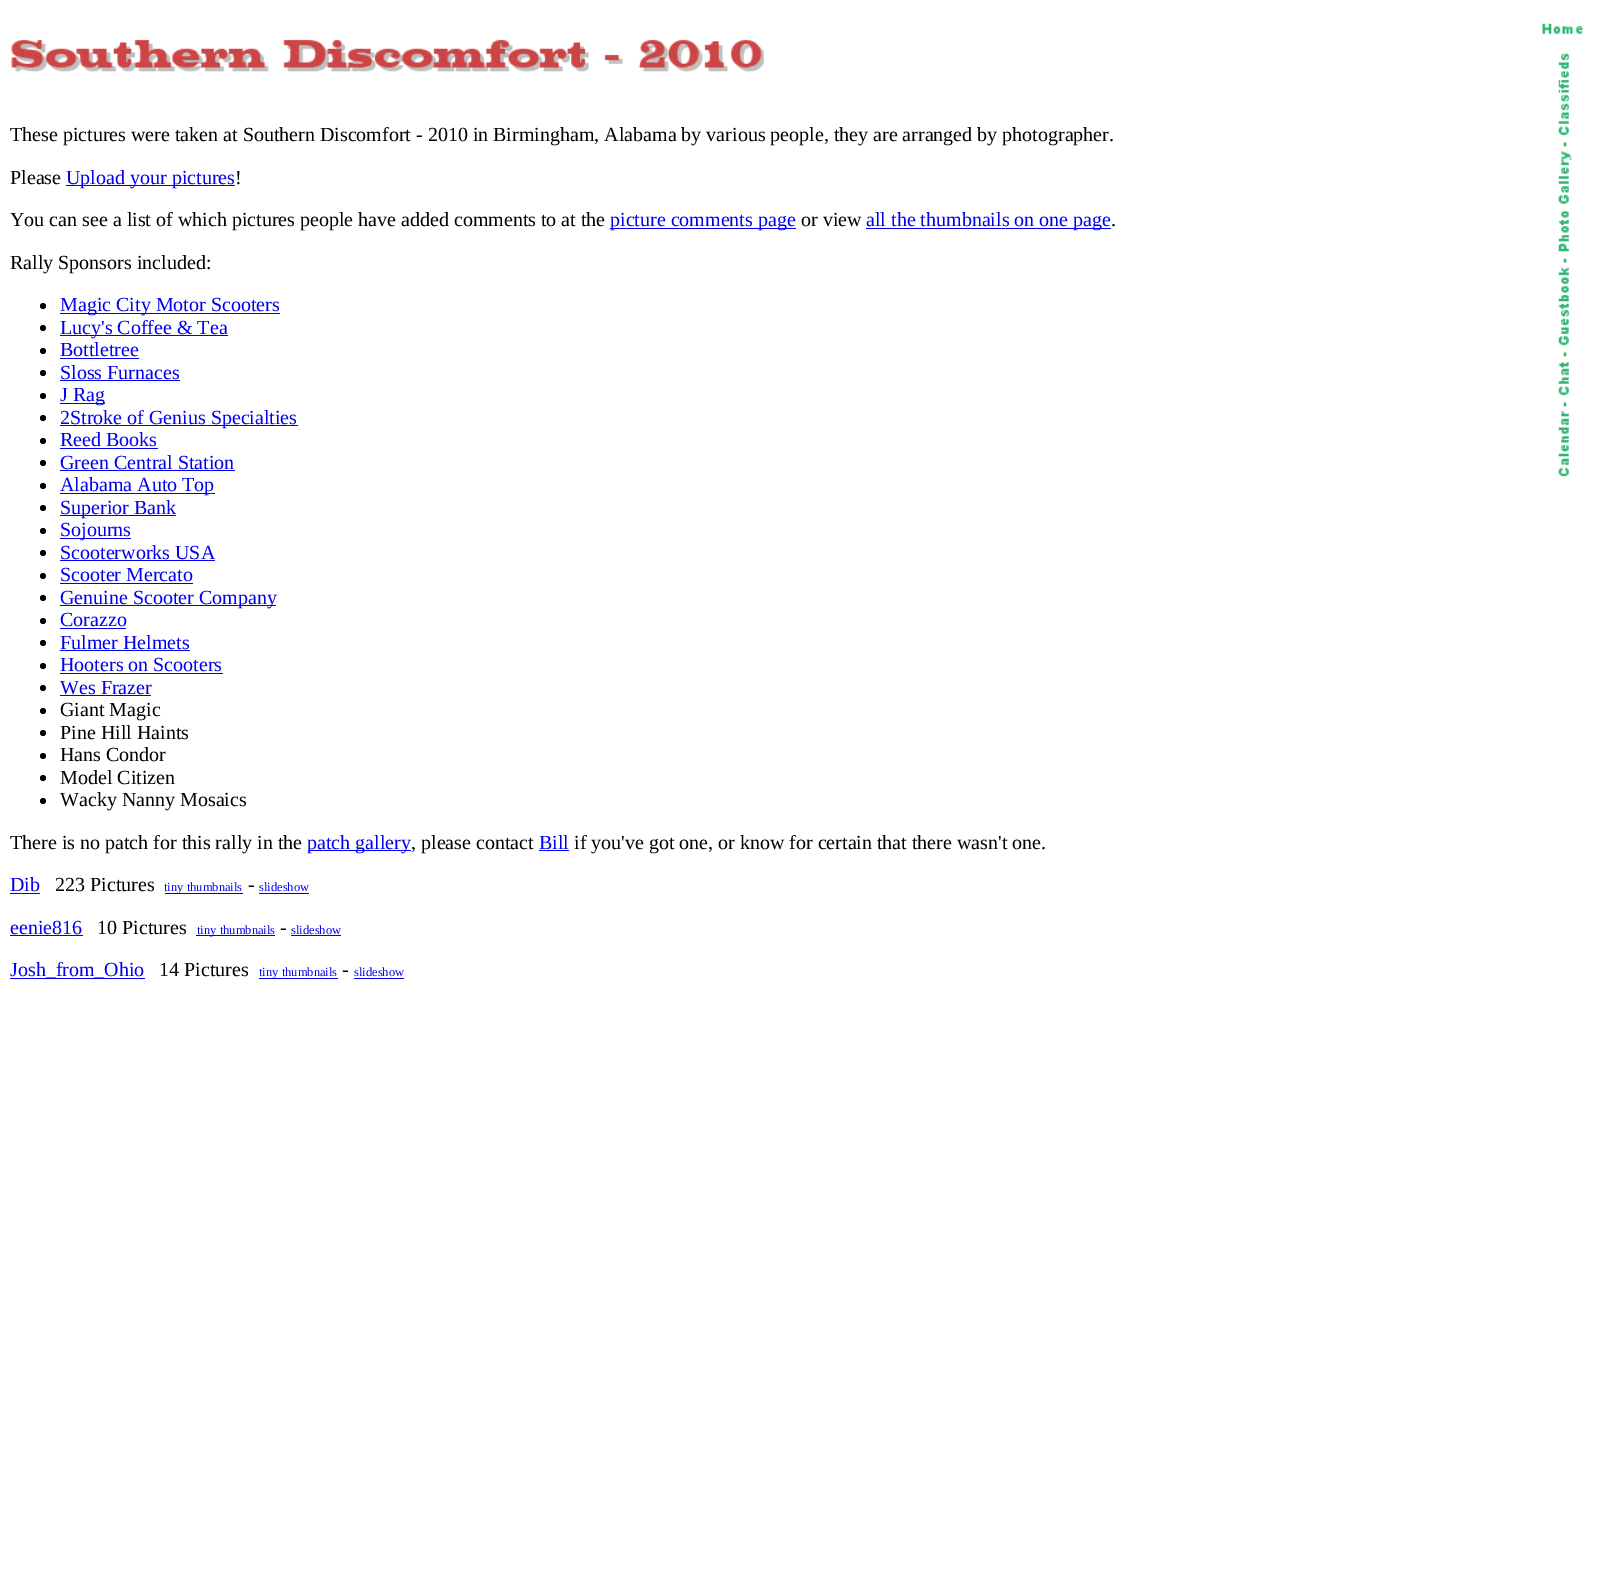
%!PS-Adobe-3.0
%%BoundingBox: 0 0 1600 1585
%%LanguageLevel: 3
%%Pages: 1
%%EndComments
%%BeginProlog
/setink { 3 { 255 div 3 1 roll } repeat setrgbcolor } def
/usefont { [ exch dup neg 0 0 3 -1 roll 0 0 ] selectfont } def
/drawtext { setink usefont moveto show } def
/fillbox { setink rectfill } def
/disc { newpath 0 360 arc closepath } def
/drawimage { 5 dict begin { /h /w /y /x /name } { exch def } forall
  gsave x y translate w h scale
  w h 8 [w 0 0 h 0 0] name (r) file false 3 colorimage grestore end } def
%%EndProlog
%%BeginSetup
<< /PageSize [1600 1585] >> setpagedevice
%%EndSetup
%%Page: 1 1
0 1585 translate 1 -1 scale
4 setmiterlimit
0 0 1600 1585 255 255 255 fillbox
(assets/img1.rgb) 11 39 753 33 drawimage
(assets/img2.rgb) 1542 23 41 11 drawimage
(assets/img3.rgb) 1558 53 14 424 drawimage
(These pictures were taken at Southern Discomfort - 2010 in Birmingham, Alabama by various people, they are arranged by photographer.) 10 141 /LiberationSerif-Regular 20 0 0 0 drawtext
(Please) 10 184 /LiberationSerif-Regular 20 0 0 0 drawtext
66 185 169 1 0 0 238 fillbox
(Upload your pictures) 66 184 /LiberationSerif-Regular 20 0 0 238 drawtext
(!) 235 184 /LiberationSerif-Regular 20 0 0 0 drawtext
(You can see a list of which pictures people have added comments to at the) 10 226 /LiberationSerif-Regular 20 0 0 0 drawtext
610 228 186 1 0 0 238 fillbox
(picture comments page) 610 226 /LiberationSerif-Regular 20 0 0 238 drawtext
(or view) 801 226 /LiberationSerif-Regular 20 0 0 0 drawtext
866 228 245 1 0 0 238 fillbox
(all the thumbnails on one page) 866 226 /LiberationSerif-Regular 20 0 0 238 drawtext
(.) 1111 226 /LiberationSerif-Regular 20 0 0 0 drawtext
(Rally Sponsors included:) 10 269 /LiberationSerif-Regular 20 0 0 0 drawtext
43 306 3 disc fill
60 313 220 1 0 0 238 fillbox
(Magic City Motor Scooters) 60 311 /LiberationSerif-Regular 20 0 0 238 drawtext
0 0 0 setink
43 328 3 disc fill
60 335 168 1 0 0 238 fillbox
(Lucy's Coffee & Tea) 60 334 /LiberationSerif-Regular 20 0 0 238 drawtext
0 0 0 setink
43 351 3 disc fill
(Bottletree) 60 356 /LiberationSerif-Regular 20 0 0 238 drawtext
60 358 79 1 0 0 238 fillbox
0 0 0 setink
43 373 3 disc fill
(Sloss Furnaces) 60 379 /LiberationSerif-Regular 20 0 0 238 drawtext
60 380 120 1 0 0 238 fillbox
0 0 0 setink
43 396 3 disc fill
60 403 45 1 0 0 238 fillbox
(J Rag) 60 401 /LiberationSerif-Regular 20 0 0 238 drawtext
0 0 0 setink
43 418 3 disc fill
60 425 238 1 0 0 238 fillbox
(2Stroke of Genius Specialties) 60 424 /LiberationSerif-Regular 20 0 0 238 drawtext
0 0 0 setink
43 441 3 disc fill
(Reed Books) 60 446 /LiberationSerif-Regular 20 0 0 238 drawtext
60 448 98 1 0 0 238 fillbox
0 0 0 setink
43 463 3 disc fill
(Green Central Station) 60 469 /LiberationSerif-Regular 20 0 0 238 drawtext
60 470 175 1 0 0 238 fillbox
0 0 0 setink
43 486 3 disc fill
60 493 155 1 0 0 238 fillbox
(Alabama Auto Top) 60 491 /LiberationSerif-Regular 20 0 0 238 drawtext
0 0 0 setink
43 508 3 disc fill
60 515 116 1 0 0 238 fillbox
(Superior Bank) 60 514 /LiberationSerif-Regular 20 0 0 238 drawtext
0 0 0 setink
43 531 3 disc fill
60 538 71 1 0 0 238 fillbox
(Sojourns) 60 536 /LiberationSerif-Regular 20 0 0 238 drawtext
0 0 0 setink
43 553 3 disc fill
(Scooterworks USA) 60 559 /LiberationSerif-Regular 20 0 0 238 drawtext
60 560 155 1 0 0 238 fillbox
0 0 0 setink
43 576 3 disc fill
(Scooter Mercato) 60 581 /LiberationSerif-Regular 20 0 0 238 drawtext
60 583 133 1 0 0 238 fillbox
0 0 0 setink
43 598 3 disc fill
60 605 216 1 0 0 238 fillbox
(Genuine Scooter Company) 60 604 /LiberationSerif-Regular 20 0 0 238 drawtext
0 0 0 setink
43 621 3 disc fill
(Corazzo) 60 626 /LiberationSerif-Regular 20 0 0 238 drawtext
60 628 66 1 0 0 238 fillbox
0 0 0 setink
43 643 3 disc fill
(Fulmer Helmets) 60 649 /LiberationSerif-Regular 20 0 0 238 drawtext
60 650 130 1 0 0 238 fillbox
0 0 0 setink
43 666 3 disc fill
(Hooters on Scooters) 60 671 /LiberationSerif-Regular 20 0 0 238 drawtext
60 673 163 1 0 0 238 fillbox
0 0 0 setink
43 688 3 disc fill
(Wes Frazer) 60 694 /LiberationSerif-Regular 20 0 0 238 drawtext
60 695 91 1 0 0 238 fillbox
0 0 0 setink
43 711 3 disc fill
(Giant Magic) 60 716 /LiberationSerif-Regular 20 0 0 0 drawtext
43 733 3 disc fill
(Pine Hill Haints) 60 739 /LiberationSerif-Regular 20 0 0 0 drawtext
43 756 3 disc fill
(Hans Condor) 60 761 /LiberationSerif-Regular 20 0 0 0 drawtext
43 778 3 disc fill
(Model Citizen) 60 784 /LiberationSerif-Regular 20 0 0 0 drawtext
43 801 3 disc fill
(Wacky Nanny Mosaics) 60 806 /LiberationSerif-Regular 20 0 0 0 drawtext
(There is no patch for this rally in the) 10 849 /LiberationSerif-Regular 20 0 0 0 drawtext
308 850 103 1 0 0 238 fillbox
(patch gallery) 307 849 /LiberationSerif-Regular 20 0 0 238 drawtext
(, please contact) 411 849 /LiberationSerif-Regular 20 0 0 0 drawtext
(Bill) 539 849 /LiberationSerif-Regular 20 0 0 238 drawtext
539 850 30 1 0 0 238 fillbox
(if you've got one, or know for certain that there wasn't one.) 574 849 /LiberationSerif-Regular 20 0 0 0 drawtext
(Dib) 10 891 /LiberationSerif-Regular 20 0 0 238 drawtext
10 893 30 1 0 0 238 fillbox
(223 Pictures) 55 891 /LiberationSerif-Regular 20 0 0 0 drawtext
165 893 78 1 0 0 238 fillbox
(tiny thumbnails) 164 891 /LiberationSerif-Regular 12.5 0 0 238 drawtext
(-) 248 891 /LiberationSerif-Regular 20 0 0 0 drawtext
(slideshow) 259 891 /LiberationSerif-Regular 12.5 0 0 238 drawtext
259 893 50 1 0 0 238 fillbox
(eenie816) 10 934 /LiberationSerif-Regular 20 0 0 238 drawtext
10 935 73 1 0 0 238 fillbox
(10 Pictures) 97 934 /LiberationSerif-Regular 20 0 0 0 drawtext
196 935 79 1 0 0 238 fillbox
(tiny thumbnails) 197 934 /LiberationSerif-Regular 12.5 0 0 238 drawtext
(-) 280 934 /LiberationSerif-Regular 20 0 0 0 drawtext
(slideshow) 291 934 /LiberationSerif-Regular 12.5 0 0 238 drawtext
291 935 50 1 0 0 238 fillbox
10 978 135 1 0 0 238 fillbox
(Josh_from_Ohio) 10 976 /LiberationSerif-Regular 20 0 0 238 drawtext
(14 Pictures) 159 976 /LiberationSerif-Regular 20 0 0 0 drawtext
259 978 79 1 0 0 238 fillbox
(tiny thumbnails) 259 976 /LiberationSerif-Regular 12.5 0 0 238 drawtext
(-) 342 976 /LiberationSerif-Regular 20 0 0 0 drawtext
(slideshow) 354 976 /LiberationSerif-Regular 12.5 0 0 238 drawtext
354 978 50 1 0 0 238 fillbox
showpage
%%EOF
